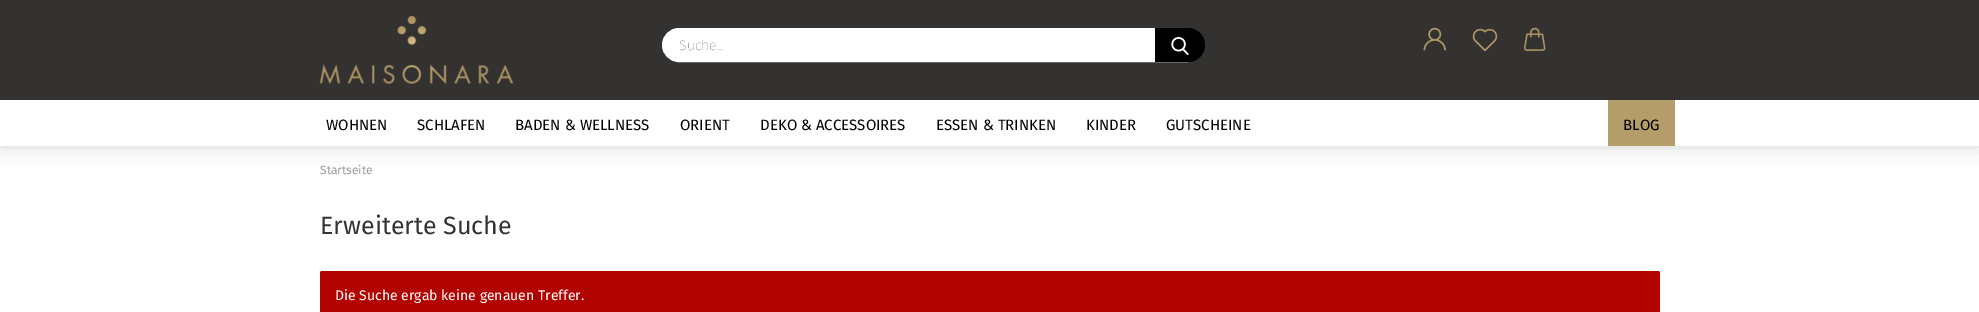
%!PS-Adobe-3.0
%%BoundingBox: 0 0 1979 312
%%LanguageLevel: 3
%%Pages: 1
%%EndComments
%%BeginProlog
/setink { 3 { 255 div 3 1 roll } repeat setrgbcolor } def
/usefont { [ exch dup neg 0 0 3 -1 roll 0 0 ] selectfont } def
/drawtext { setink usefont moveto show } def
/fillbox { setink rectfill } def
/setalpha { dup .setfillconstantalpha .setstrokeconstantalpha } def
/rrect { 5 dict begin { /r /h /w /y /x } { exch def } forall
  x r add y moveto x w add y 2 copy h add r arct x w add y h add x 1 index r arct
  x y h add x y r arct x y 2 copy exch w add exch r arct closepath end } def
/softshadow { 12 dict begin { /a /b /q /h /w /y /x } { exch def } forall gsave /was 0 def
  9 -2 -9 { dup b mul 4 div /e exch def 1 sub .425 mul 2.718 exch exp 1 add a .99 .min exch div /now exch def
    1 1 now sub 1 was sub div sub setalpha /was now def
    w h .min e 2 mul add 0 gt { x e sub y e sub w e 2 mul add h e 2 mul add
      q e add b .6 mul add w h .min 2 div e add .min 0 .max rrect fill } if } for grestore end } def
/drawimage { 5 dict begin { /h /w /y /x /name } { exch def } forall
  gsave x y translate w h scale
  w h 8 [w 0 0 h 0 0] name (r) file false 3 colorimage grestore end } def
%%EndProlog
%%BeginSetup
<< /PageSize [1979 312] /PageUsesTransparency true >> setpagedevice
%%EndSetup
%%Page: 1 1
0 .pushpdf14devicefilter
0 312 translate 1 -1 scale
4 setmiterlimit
0 0 1979 312 255 255 255 fillbox
0 0 0 setink
0 0 1979 140 0 12.5 0.3 softshadow
0 0 1979 100 52 50 49 fillbox
(assets/img1.rgb) 319 16 195 68 drawimage
255 255 255 setink
663 29 539 32 16 rrect gsave fill grestore
2 setlinewidth
stroke
(Suche...) 679 50 /FiraSans-ExtraLight 14 89 89 89 drawtext
0 0 0 setink
1155 28 moveto 1188 28 lineto 1197.5 28 1205 35.5 1205 45 curveto 1205 54.5 1197.5 62 1188 62 curveto 1155 62 lineto closepath fill
(assets/img2.rgb) 1171 37 18 18 drawimage
(assets/img3.rgb) 1423 27 23 24 drawimage
(assets/img4.rgb) 1472 28 26 24 drawimage
(assets/img5.rgb) 1524 27 22 24 drawimage
0 100 1979 46 255 255 255 fillbox
(WOHNEN) 326 130 /FiraSans-Regular 15 0 0 0 drawtext
(SCHLAFEN) 417 130 /FiraSans-Regular 15 0 0 0 drawtext
(BADEN & WELLNESS) 515 130 /FiraSans-Regular 15 0 0 0 drawtext
(ORIENT) 680 130 /FiraSans-Regular 15 0 0 0 drawtext
(DEKO & ACCESSOIRES) 760 130 /FiraSans-Regular 15 0 0 0 drawtext
(ESSEN & TRINKEN) 936 130 /FiraSans-Regular 15 0 0 0 drawtext
(KINDER) 1086 130 /FiraSans-Regular 15 0 0 0 drawtext
(GUTSCHEINE) 1166 130 /FiraSans-Regular 15 0 0 0 drawtext
1608 100 67 46 181 157 105 fillbox
(BLOG) 1623 130 /FiraSans-Regular 15 0 0 0 drawtext
(Startseite) 320 174 /FiraSans-Regular 12 153 153 153 drawtext
(Erweiterte Suche) 320 234 /FiraSans-Regular 25 51 51 51 drawtext
179 3 0 setink
320 271 1340 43 2 rrect fill
(Die Suche ergab keine genauen Treffer.) 335 300 /FiraSans-Regular 14 255 255 255 drawtext
.poppdf14devicefilter showpage
%%EOF
